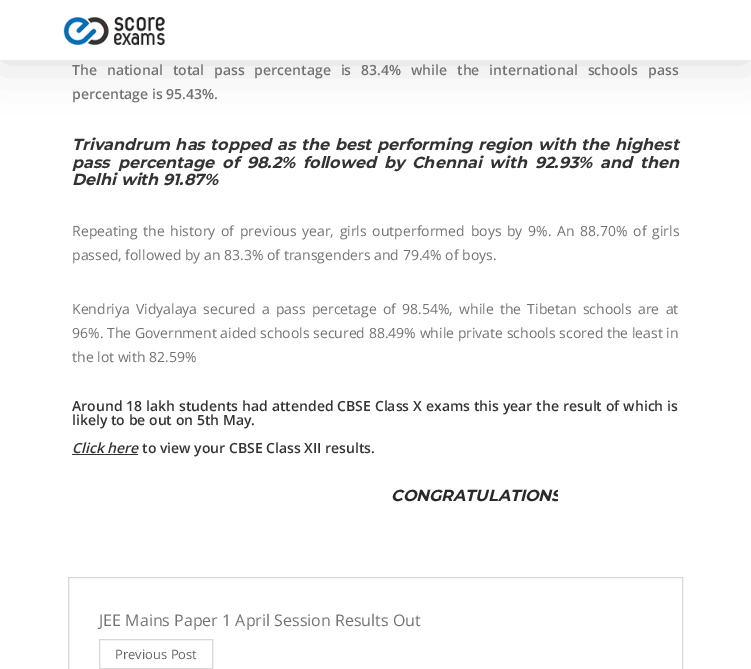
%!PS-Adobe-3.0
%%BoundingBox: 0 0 751 669
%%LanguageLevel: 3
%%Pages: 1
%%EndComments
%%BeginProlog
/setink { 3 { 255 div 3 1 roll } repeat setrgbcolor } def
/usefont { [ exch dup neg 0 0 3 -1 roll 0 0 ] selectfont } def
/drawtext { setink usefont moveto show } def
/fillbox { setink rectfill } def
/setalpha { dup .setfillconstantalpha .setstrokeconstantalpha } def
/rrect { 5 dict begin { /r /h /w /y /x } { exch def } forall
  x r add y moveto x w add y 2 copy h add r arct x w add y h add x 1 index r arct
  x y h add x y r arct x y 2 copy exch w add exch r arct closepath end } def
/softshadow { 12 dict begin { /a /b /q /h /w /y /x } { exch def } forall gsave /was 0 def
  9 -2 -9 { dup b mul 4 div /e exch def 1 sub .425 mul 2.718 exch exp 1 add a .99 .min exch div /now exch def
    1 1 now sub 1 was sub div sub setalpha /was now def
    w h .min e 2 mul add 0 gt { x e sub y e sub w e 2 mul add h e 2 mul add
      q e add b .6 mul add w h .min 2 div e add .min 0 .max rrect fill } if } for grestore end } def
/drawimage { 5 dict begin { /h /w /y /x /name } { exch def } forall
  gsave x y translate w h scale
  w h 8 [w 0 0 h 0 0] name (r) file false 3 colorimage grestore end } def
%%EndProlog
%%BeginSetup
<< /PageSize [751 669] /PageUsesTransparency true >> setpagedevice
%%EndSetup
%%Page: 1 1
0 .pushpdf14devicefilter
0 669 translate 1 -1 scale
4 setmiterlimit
0 0 751 669 255 255 255 fillbox
0 0 0 setink
0 0 751 60 0 25 0.15 softshadow
0 0 751 60 255 255 255 fillbox
(assets/img1.rgb) 63 17 102 28 drawimage
/OpenSans-SemiBold 14 usefont
114 114 114 setink
72 75 moveto 6.25 0 32 (The national total pass percentage is 83.4% while the international schools pass) widthshow
(percentage is 95.43%.) 72 99 /OpenSans-SemiBold 14 114 114 114 drawtext
/Montserrat-BoldItalic 16 usefont
51 51 51 setink
72 150 moveto 1.1 0 32 (Trivandrum has topped as the best performing region with the highest) widthshow
72 168 moveto 3.25 0 32 (pass percentage of 98.2% followed by Chennai with 92.93% and then) widthshow
(Delhi with 91.87%) 72 185 /Montserrat-BoldItalic 16 51 51 51 drawtext
/OpenSans-Regular 14 usefont
114 114 114 setink
72 236 moveto 2.1 0 32 (Repeating the history of previous year, girls outperformed boys by 9%. An 88.70% of girls) widthshow
(passed, followed by an 83.3% of transgenders and 79.4% of boys.) 72 260 /OpenSans-Regular 14 114 114 114 drawtext
72 314 moveto 2.6 0 32 (Kendriya Vidyalaya secured a pass percetage of 98.54%, while the Tibetan schools are at) widthshow
(96%. The Government aided schools secured 88.49% while private schools scored the least in) 72 338 /OpenSans-Regular 14 114 114 114 drawtext
(the lot with 82.59%) 72 362 /OpenSans-Regular 14 114 114 114 drawtext
/OpenSans-SemiBold 14 usefont
51 51 51 setink
72 411 moveto 0.25 0 32 (Around 18 lakh students had attended CBSE Class X exams this year the result of which is) widthshow
(likely to be out on 5th May.) 72 425 /OpenSans-SemiBold 14 51 51 51 drawtext
(Click here) 72 453 /OpenSans-SemiBoldItalic 14 51 51 51 drawtext
72 454 66 1 51 51 51 fillbox
(to view your CBSE Class XII results.) 142 453 /OpenSans-SemiBold 14 51 51 51 drawtext
gsave
72 483 486 26 rectclip
(CONGRATULATIONS) 391 501 /Montserrat-BoldItalic 16 41 41 41 drawtext
grestore
215 215 215 setink
68.5 577.5 614 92 rectstroke
(JEE Mains Paper 1 April Session Results Out) 99 626 /OpenSans-Regular 16 114 114 114 drawtext
215 215 215 setink
99.5 639.5 113 29 rectstroke
(Previous Post) 115 659 /OpenSans-Regular 13 102 102 102 drawtext
.poppdf14devicefilter showpage
%%EOF
